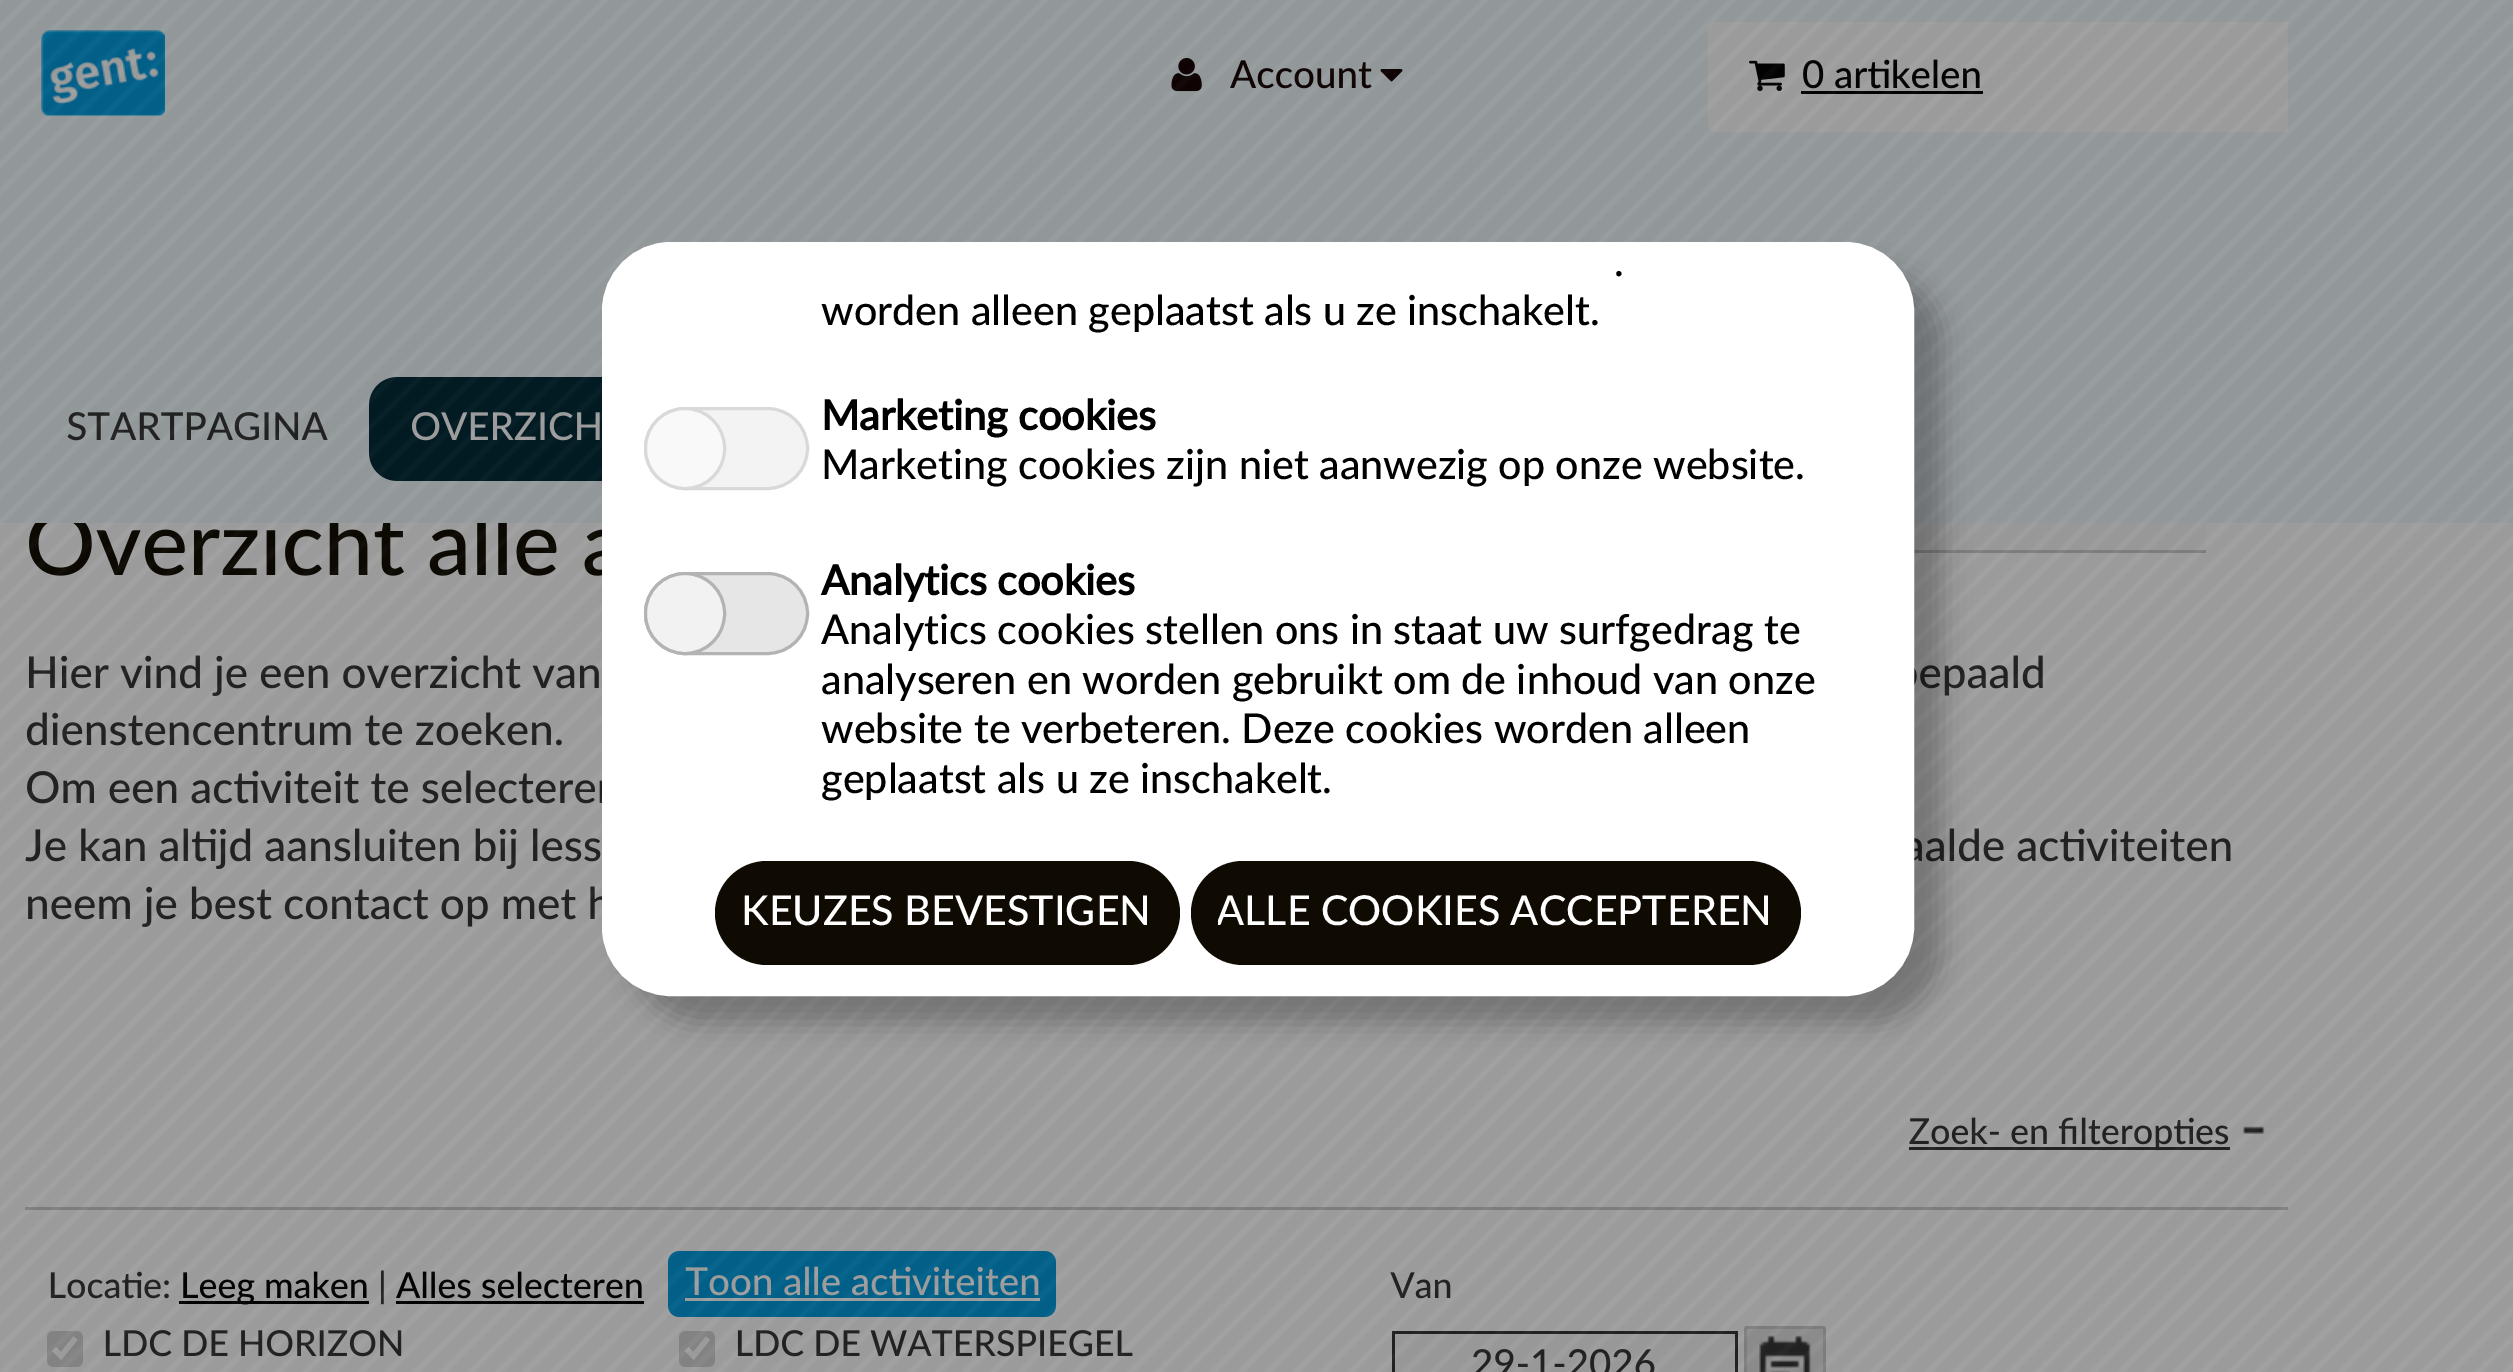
%!PS-Adobe-3.0
%%BoundingBox: 0 0 2513 1372
%%LanguageLevel: 3
%%Pages: 1
%%EndComments
%%BeginProlog
/setink { 3 { 255 div 3 1 roll } repeat setrgbcolor } def
/usefont { [ exch dup neg 0 0 3 -1 roll 0 0 ] selectfont } def
/drawtext { setink usefont moveto show } def
/fillbox { setink rectfill } def
/setalpha { dup .setfillconstantalpha .setstrokeconstantalpha } def
/rrect { 5 dict begin { /r /h /w /y /x } { exch def } forall
  x r add y moveto x w add y 2 copy h add r arct x w add y h add x 1 index r arct
  x y h add x y r arct x y 2 copy exch w add exch r arct closepath end } def
/softshadow { 12 dict begin { /a /b /q /h /w /y /x } { exch def } forall gsave /was 0 def
  9 -2 -9 { dup b mul 4 div /e exch def 1 sub .425 mul 2.718 exch exp 1 add a .99 .min exch div /now exch def
    1 1 now sub 1 was sub div sub setalpha /was now def
    w h .min e 2 mul add 0 gt { x e sub y e sub w e 2 mul add h e 2 mul add
      q e add b .6 mul add w h .min 2 div e add .min 0 .max rrect fill } if } for grestore end } def
/drawimage { 5 dict begin { /h /w /y /x /name } { exch def } forall
  gsave x y translate w h scale
  w h 8 [w 0 0 h 0 0] name (r) file false 3 colorimage grestore end } def
%%EndProlog
%%BeginSetup
<< /PageSize [2513 1372] /PageUsesTransparency true >> setpagedevice
%%EndSetup
%%Page: 1 1
0 .pushpdf14devicefilter
0 1372 translate 1 -1 scale
4 setmiterlimit
0 0 2513 1372 255 255 255 fillbox
(Overzicht alle a) 25 575 /Lato-Medium 88 16 11 2 drawtext
1914 523 292 27 250 250 250 fillbox
204 204 204 setink
1499 470 moveto 2206 470 lineto 2206 553 lineto 1499 553 lineto 1494 553 1490 549 1490 544 curveto 1490 478 lineto 1490 474 1494 470 1499 470 curveto closepath 1499 473 moveto 2206 473 lineto 2206 550 lineto 1499 550 lineto 1496 550 1493 548 1493 544 curveto 1493 478 lineto 1493 475 1496 473 1499 473 curveto closepath eofill
0 0 2513 523 240 249 253 fillbox
(assets/img1.rgb) 41 30 124 86 drawimage
(assets/img2.rgb) 1171 58 31 34 drawimage
(Account) 1230 88 /Lato-Medium 38.5 21 1 1 drawtext
(assets/img3.rgb) 1380 69 23 13 drawimage
255 255 255 setink
1716 22 moveto 2288 22 lineto 2288 132 lineto 1716 132 lineto 1711.5 132 1708 128.5 1708 124 curveto 1708 30 lineto 1708 25.5 1711.5 22 1716 22 curveto closepath fill
(assets/img4.rgb) 1749 60 36 31 drawimage
(0 artikelen) 1802 88 /Lato-Medium 38.5 0 0 0 drawtext
1801 91 182 3 0 0 0 fillbox
(STARTPAGINA) 66 440 /Lato-Medium 38.5 51 51 51 drawtext
0 40 54 setink
369 377 660 104 28 rrect fill
(OVERZICH) 410 440 /Lato-Medium 38.5 255 255 255 drawtext
(Hier vind je een overzicht van) 25 688 /Lato-Medium 44 51 51 51 drawtext
(epaald) 1918 688 /Lato-Medium 44 51 51 51 drawtext
(dienstencentrum te zoeken.) 25 745 /Lato-Medium 44 51 51 51 drawtext
(Om een activiteit te selectere) 25 803 /Lato-Medium 44 51 51 51 drawtext
(Je kan altijd aansluiten bij less) 25 861 /Lato-Medium 44 51 51 51 drawtext
(aalde activiteiten) 1903 861 /Lato-Medium 44 51 51 51 drawtext
(neem je best contact op met h) 25 919 /Lato-Medium 44 51 51 51 drawtext
0 157 224 setink
668 1251 388 66 11 rrect fill
(Toon alle activiteiten) 685 1295 /Lato-Medium 38.5 255 255 255 drawtext
685 1298 355 3 255 255 255 fillbox
(assets/img5.rgb) 2243 1126 22 8 drawimage
1909 1147 321 3 51 51 51 fillbox
(Zoek- en filteropties) 1909 1144 /Lato-Medium 35.75 51 51 51 drawtext
25 1207 2263 3 204 204 204 fillbox
(Locatie:) 48 1298 /Lato-Medium 35.75 51 51 51 drawtext
179 1301 190 3 0 0 0 fillbox
(Leeg maken) 180 1298 /Lato-Medium 35.75 0 0 0 drawtext
(|) 378 1298 /Lato-Medium 35.75 51 51 51 drawtext
(Alles selecteren) 396 1298 /Lato-Medium 35.75 0 0 0 drawtext
396 1301 248 3 0 0 0 fillbox
214 214 214 setink
47 1331 36 36 6 rrect fill
255 255 255 setink
5.7 setlinewidth
54 1349 moveto 61 1356 lineto 75.5 1338 lineto stroke
(LDC DE HORIZON) 103 1356 /Lato-Medium 35.75 51 51 51 drawtext
214 214 214 setink
679 1331 36 36 6 rrect fill
255 255 255 setink
686.5 1349 moveto 693.5 1356 lineto 708 1338 lineto stroke
(LDC DE WATERSPIEGEL) 735 1356 /Lato-Medium 35.75 51 51 51 drawtext
(Van) 1390 1298 /Lato-Medium 35.75 51 51 51 drawtext
250 250 250 setink
1393.5 1332.5 moveto 1736.5 1332.5 lineto 1736.5 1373.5 lineto 1393.5 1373.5 lineto closepath gsave fill grestore
51 51 51 setink
3 setlinewidth
stroke
(29-1-2026) 1471 1377 /Lato-Medium 38.5 51 51 51 drawtext
229 229 229 setink
1744 1326 82 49 3 rrect fill
(assets/img6.rgb) 1759 1335 52 37 drawimage
204 204 204 setink
1745.5 1327.5 79 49 1.5 rrect stroke
(assets/img7.rgb) 0 0 2513 1372 drawimage
0 0 0 setink
630 270 1312 753 69 14 0.25 softshadow
255 255 255 setink
616 256 1284 726 55 rrect gsave fill grestore
28 setlinewidth
stroke
(.) 1614 276 /Lato-Medium 41.25 0 0 0 drawtext
(worden alleen geplaatst als u ze inschakelt.) 821 325 /Lato-Medium 41.25 0 0 0 drawtext
243 243 243 setink
645.5 408.5 162 80 40 rrect gsave fill grestore
217 217 217 setink
3 setlinewidth
stroke
249 249 249 setink
645.5 408.5 79 80 39.5 rrect gsave fill grestore
217 217 217 setink
stroke
(Marketing cookies) 821 430 /Lato-Bold 41.25 0 0 0 drawtext
(Marketing cookies zijn niet aanwezig op onze website.) 821 479 /Lato-Medium 41.25 0 0 0 drawtext
230 230 230 setink
645.5 573.5 162 80 40 rrect gsave fill grestore
179 179 179 setink
stroke
242 242 242 setink
645.5 573.5 79 80 39.5 rrect gsave fill grestore
179 179 179 setink
stroke
(Analytics cookies) 821 595 /Lato-Bold 41.25 0 0 0 drawtext
(Analytics cookies stellen ons in staat uw surfgedrag te) 821 644 /Lato-Medium 41.25 0 0 0 drawtext
(analyseren en worden gebruikt om de inhoud van onze) 821 694 /Lato-Medium 41.25 0 0 0 drawtext
(website te verbeteren. Deze cookies worden alleen) 821 743 /Lato-Medium 41.25 0 0 0 drawtext
(geplaatst als u ze inschakelt.) 821 793 /Lato-Medium 41.25 0 0 0 drawtext
16 11 2 setink
715 861 465 104 52 rrect fill
(KEUZES BEVESTIGEN) 741 925 /Lato-Medium 41.25 255 255 255 drawtext
16 11 2 setink
1191 861 610 104 52 rrect fill
gsave
1218 888 556 50 8 rrect clip newpath
(ALLE COOKIES ACCEPTEREN) 1216 925 /Lato-Medium 41.25 255 255 255 drawtext
grestore
.poppdf14devicefilter showpage
%%EOF
